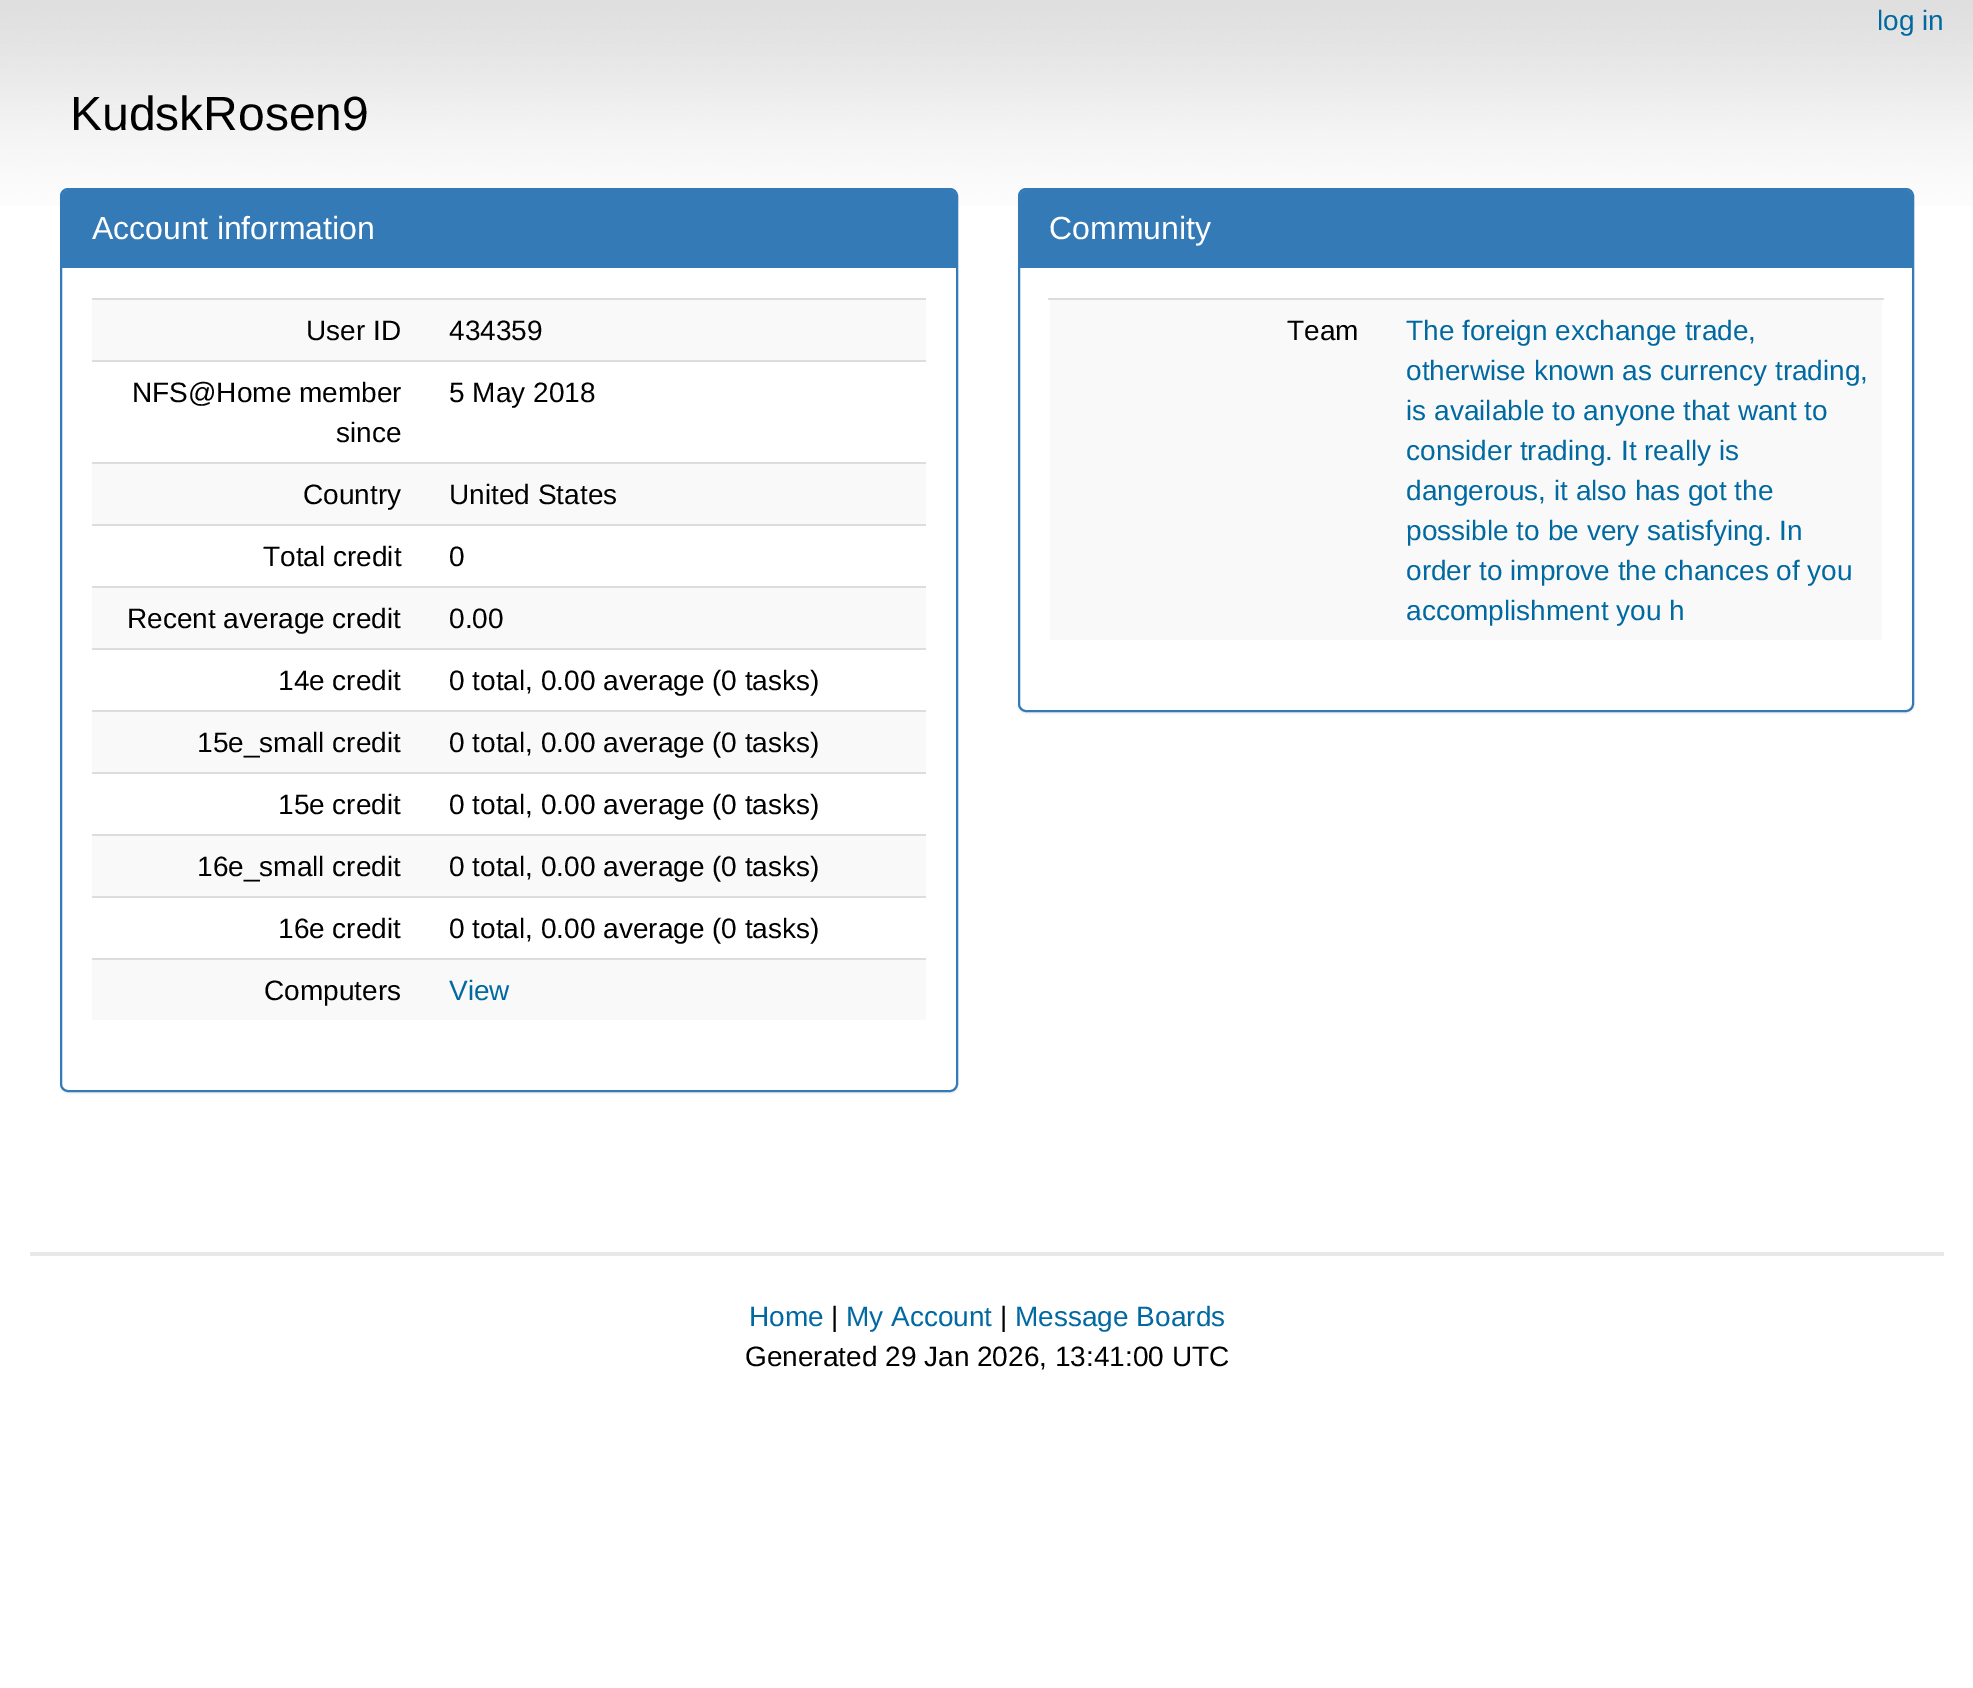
%!PS-Adobe-3.0
%%BoundingBox: 0 0 1973 1688
%%LanguageLevel: 3
%%Pages: 1
%%EndComments
%%BeginProlog
/setink { 3 { 255 div 3 1 roll } repeat setrgbcolor } def
/usefont { [ exch dup neg 0 0 3 -1 roll 0 0 ] selectfont } def
/drawtext { setink usefont moveto show } def
/fillbox { setink rectfill } def
/setalpha { dup .setfillconstantalpha .setstrokeconstantalpha } def
/rrect { 5 dict begin { /r /h /w /y /x } { exch def } forall
  x r add y moveto x w add y 2 copy h add r arct x w add y h add x 1 index r arct
  x y h add x y r arct x y 2 copy exch w add exch r arct closepath end } def
/softshadow { 12 dict begin { /a /b /q /h /w /y /x } { exch def } forall gsave /was 0 def
  9 -2 -9 { dup b mul 4 div /e exch def 1 sub .425 mul 2.718 exch exp 1 add a .99 .min exch div /now exch def
    1 1 now sub 1 was sub div sub setalpha /was now def
    w h .min e 2 mul add 0 gt { x e sub y e sub w e 2 mul add h e 2 mul add
      q e add b .6 mul add w h .min 2 div e add .min 0 .max rrect fill } if } for grestore end } def
/drawimage { 5 dict begin { /h /w /y /x /name } { exch def } forall
  gsave x y translate w h scale
  w h 8 [w 0 0 h 0 0] name (r) file false 3 colorimage grestore end } def
%%EndProlog
%%BeginSetup
<< /PageSize [1973 1688] /PageUsesTransparency true >> setpagedevice
%%EndSetup
%%Page: 1 1
0 .pushpdf14devicefilter
0 1688 translate 1 -1 scale
4 setmiterlimit
0 0 1973 1688 255 255 255 fillbox
(assets/img1.rgb) 0 0 1973 206 drawimage
(log in) 1877 30 /LiberationSans-Regular 28 0 105 161 drawtext
(KudskRosen9) 70 130 /LiberationSans-Regular 48 0 0 0 drawtext
60 190 898 904 8 1 0.05 softshadow
255 255 255 setink
61 189 896 902 7 rrect gsave fill grestore
51 122 183 setink
2 setlinewidth
stroke
68 190 moveto 950 190 lineto 953.5 190 956 192.5 956 196 curveto 956 268 lineto 62 268 lineto 62 196 lineto 62 192.5 64.5 190 68 190 curveto closepath fill
(Account information) 92 239 /LiberationSans-Regular 32 255 255 255 drawtext
92 300 834 60 249 249 249 fillbox
(User ID) 306 340 /LiberationSans-Regular 28 0 0 0 drawtext
92 298 834 2 221 221 221 fillbox
(434359) 449 340 /LiberationSans-Regular 28 0 0 0 drawtext
(NFS@Home member) 132 402 /LiberationSans-Regular 28 0 0 0 drawtext
(since) 336 442 /LiberationSans-Regular 28 0 0 0 drawtext
92 360 834 2 221 221 221 fillbox
(5 May 2018) 449 402 /LiberationSans-Regular 28 0 0 0 drawtext
92 464 834 60 249 249 249 fillbox
(Country) 303 504 /LiberationSans-Regular 28 0 0 0 drawtext
92 462 834 2 221 221 221 fillbox
(United States) 449 504 /LiberationSans-Regular 28 0 0 0 drawtext
(Total credit) 263 566 /LiberationSans-Regular 28 0 0 0 drawtext
92 524 834 2 221 221 221 fillbox
(0) 449 566 /LiberationSans-Regular 28 0 0 0 drawtext
92 588 834 60 249 249 249 fillbox
(Recent average credit) 127 628 /LiberationSans-Regular 28 0 0 0 drawtext
92 586 834 2 221 221 221 fillbox
(0.00) 449 628 /LiberationSans-Regular 28 0 0 0 drawtext
(14e credit) 278 690 /LiberationSans-Regular 28 0 0 0 drawtext
92 648 834 2 221 221 221 fillbox
(0 total, 0.00 average \(0 tasks\)) 449 690 /LiberationSans-Regular 28 0 0 0 drawtext
92 712 834 60 249 249 249 fillbox
(15e_small credit) 197 752 /LiberationSans-Regular 28 0 0 0 drawtext
92 710 834 2 221 221 221 fillbox
(0 total, 0.00 average \(0 tasks\)) 449 752 /LiberationSans-Regular 28 0 0 0 drawtext
(15e credit) 278 814 /LiberationSans-Regular 28 0 0 0 drawtext
92 772 834 2 221 221 221 fillbox
(0 total, 0.00 average \(0 tasks\)) 449 814 /LiberationSans-Regular 28 0 0 0 drawtext
92 836 834 60 249 249 249 fillbox
(16e_small credit) 197 876 /LiberationSans-Regular 28 0 0 0 drawtext
92 834 834 2 221 221 221 fillbox
(0 total, 0.00 average \(0 tasks\)) 449 876 /LiberationSans-Regular 28 0 0 0 drawtext
(16e credit) 278 938 /LiberationSans-Regular 28 0 0 0 drawtext
92 896 834 2 221 221 221 fillbox
(0 total, 0.00 average \(0 tasks\)) 449 938 /LiberationSans-Regular 28 0 0 0 drawtext
92 960 834 60 249 249 249 fillbox
(Computers) 264 1000 /LiberationSans-Regular 28 0 0 0 drawtext
92 958 834 2 221 221 221 fillbox
(View) 449 1000 /LiberationSans-Regular 28 0 105 161 drawtext
0 0 0 setink
1018 190 896 524 8 1 0.05 softshadow
255 255 255 setink
1019 189 894 522 7 rrect gsave fill grestore
51 122 183 setink
stroke
1026 190 moveto 1906 190 lineto 1909.5 190 1912 192.5 1912 196 curveto 1912 268 lineto 1020 268 lineto 1020 196 lineto 1020 192.5 1022.5 190 1026 190 curveto closepath fill
(Community) 1049 239 /LiberationSans-Regular 32 255 255 255 drawtext
1050 300 832 340 249 249 249 fillbox
(Team) 1287 340 /LiberationSans-Regular 28 0 0 0 drawtext
1048 298 836 2 221 221 221 fillbox
(The foreign exchange trade,) 1406 340 /LiberationSans-Regular 28 0 105 161 drawtext
(otherwise known as currency trading,) 1406 380 /LiberationSans-Regular 28 0 105 161 drawtext
(is available to anyone that want to) 1406 420 /LiberationSans-Regular 28 0 105 161 drawtext
(consider trading. It really is) 1406 460 /LiberationSans-Regular 28 0 105 161 drawtext
(dangerous, it also has got the) 1406 500 /LiberationSans-Regular 28 0 105 161 drawtext
(possible to be very satisfying. In) 1406 540 /LiberationSans-Regular 28 0 105 161 drawtext
(order to improve the chances of you) 1406 580 /LiberationSans-Regular 28 0 105 161 drawtext
(accomplishment you h) 1406 620 /LiberationSans-Regular 28 0 105 161 drawtext
30 1252 1914 4 232 232 232 fillbox
(Home) 749 1326 /LiberationSans-Regular 28 0 105 161 drawtext
(|) 831 1326 /LiberationSans-Regular 28 0 0 0 drawtext
(My Account) 846 1326 /LiberationSans-Regular 28 0 105 161 drawtext
(|) 1000 1326 /LiberationSans-Regular 28 0 0 0 drawtext
(Message Boards) 1015 1326 /LiberationSans-Regular 28 0 105 161 drawtext
(Generated 29 Jan 2026, 13:41:00 UTC) 745 1366 /LiberationSans-Regular 28 0 0 0 drawtext
.poppdf14devicefilter showpage
%%EOF
